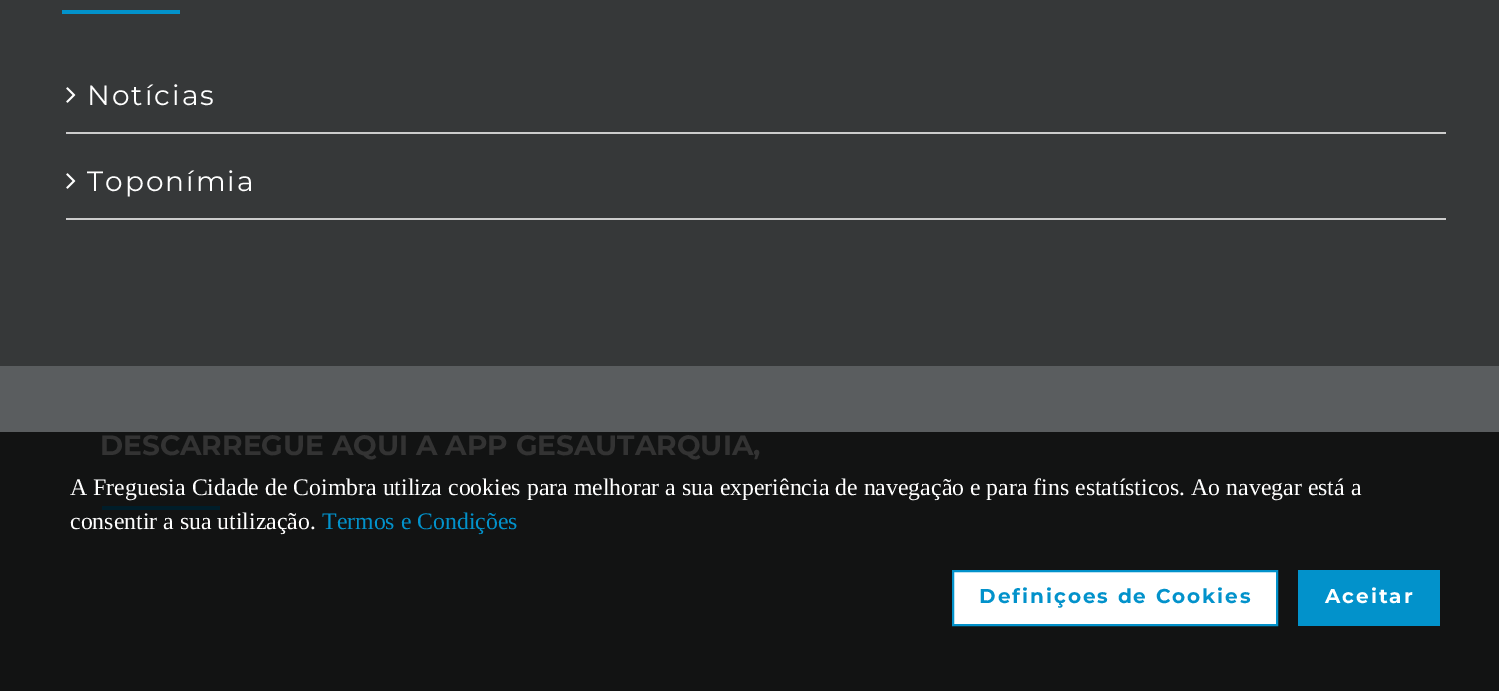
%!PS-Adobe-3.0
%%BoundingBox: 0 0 1499 691
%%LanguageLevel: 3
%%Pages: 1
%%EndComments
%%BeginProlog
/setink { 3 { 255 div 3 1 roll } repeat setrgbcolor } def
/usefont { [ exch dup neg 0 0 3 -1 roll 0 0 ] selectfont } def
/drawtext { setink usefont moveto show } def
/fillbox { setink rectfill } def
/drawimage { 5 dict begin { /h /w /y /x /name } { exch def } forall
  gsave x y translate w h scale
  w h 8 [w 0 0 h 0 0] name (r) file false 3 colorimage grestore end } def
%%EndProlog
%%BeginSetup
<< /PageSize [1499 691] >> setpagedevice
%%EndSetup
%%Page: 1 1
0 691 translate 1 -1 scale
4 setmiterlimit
0 0 1499 691 90 93 95 fillbox
0 0 1499 366 54 56 57 fillbox
62 10 118 4 2 146 203 fillbox
66 132 1380 2 204 204 204 fillbox
(assets/img1.rgb) 66 87 10 16 drawimage
/Montserrat-Regular 28 usefont
255 255 255 setink
87 105 moveto 2 0 (Notícias) ashow
66 218 1380 2 204 204 204 fillbox
(assets/img1.rgb) 66 173 10 16 drawimage
255 255 255 setink
87 191 moveto 2 0 (Toponímia) ashow
0 432 1499 259 18 19 19 fillbox
(DESCARREGUE AQUI A APP GESAUTARQUIA,) 100 455 /Montserrat-Bold 28 51 51 51 drawtext
102 506 118 4 0 29 41 fillbox
(A Freguesia Cidade de Coimbra utiliza cookies para melhorar a sua experiência de navegação e para fins estatísticos. Ao navegar está a) 70 495 /LiberationSerif-Regular 23.8 255 255 255 drawtext
(consentir a sua utilização.) 70 529 /LiberationSerif-Regular 23.8 255 255 255 drawtext
(Termos e Condições) 322 529 /LiberationSerif-Regular 23.8 2 146 203 drawtext
255 255 255 setink
953 571 moveto 1277 571 lineto 1277 625 lineto 953 625 lineto closepath gsave fill grestore
2 146 203 setink
2 setlinewidth
stroke
/Montserrat-Bold 20 usefont
979 603 moveto 2 0 (Definiçoes de Cookies) ashow
1298 570 142 56 2 146 203 fillbox
255 255 255 setink
1325 603 moveto 2 0 (Aceitar) ashow
showpage
%%EOF
